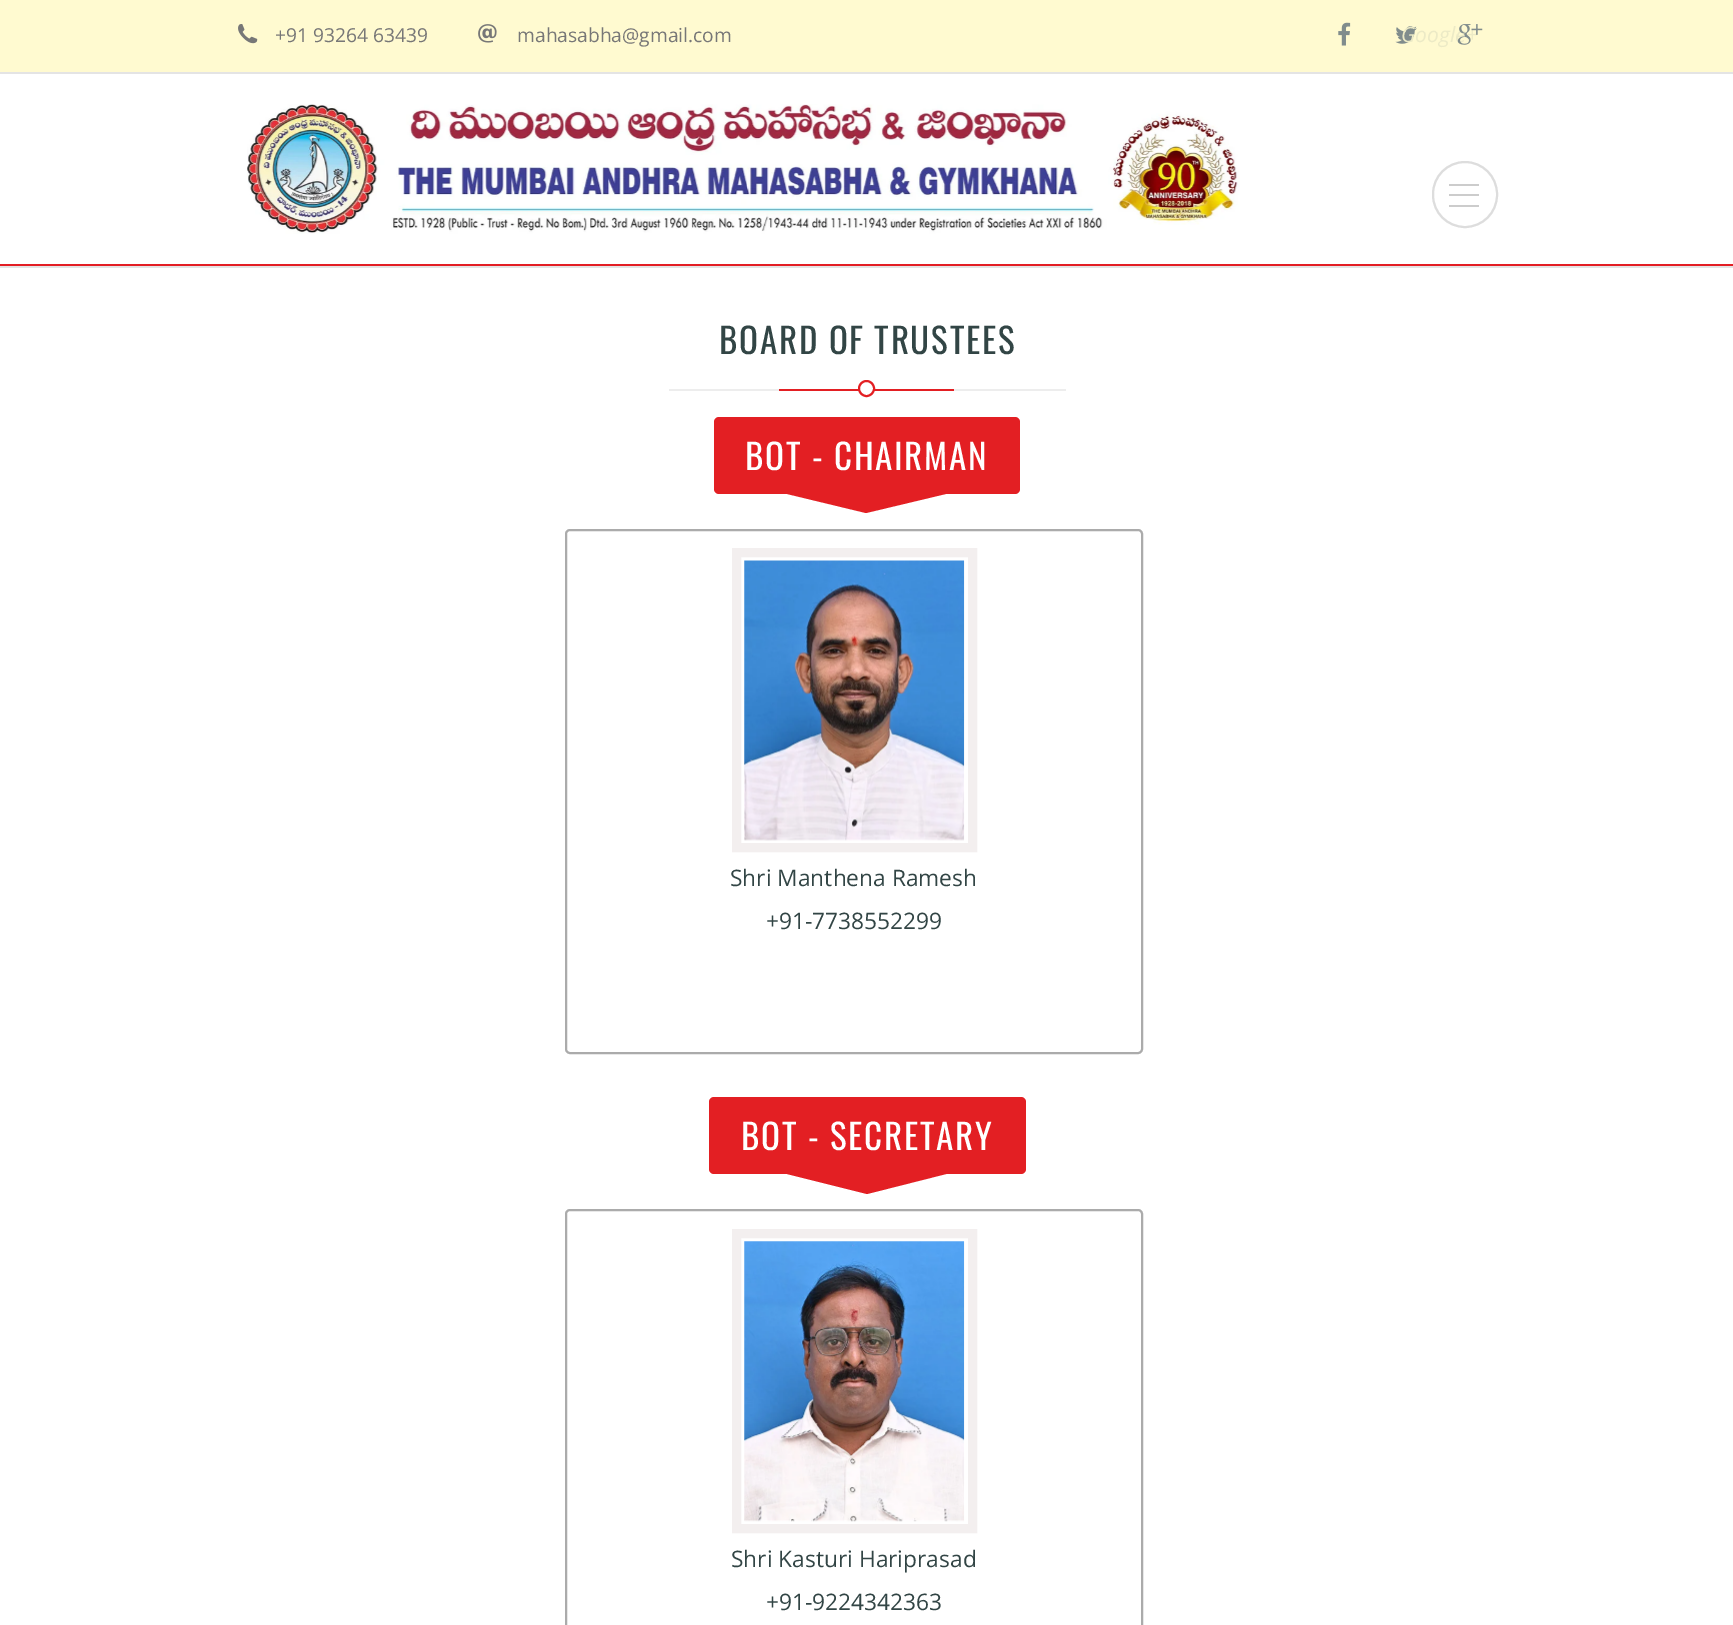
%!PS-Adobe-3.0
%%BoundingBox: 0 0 1733 1625
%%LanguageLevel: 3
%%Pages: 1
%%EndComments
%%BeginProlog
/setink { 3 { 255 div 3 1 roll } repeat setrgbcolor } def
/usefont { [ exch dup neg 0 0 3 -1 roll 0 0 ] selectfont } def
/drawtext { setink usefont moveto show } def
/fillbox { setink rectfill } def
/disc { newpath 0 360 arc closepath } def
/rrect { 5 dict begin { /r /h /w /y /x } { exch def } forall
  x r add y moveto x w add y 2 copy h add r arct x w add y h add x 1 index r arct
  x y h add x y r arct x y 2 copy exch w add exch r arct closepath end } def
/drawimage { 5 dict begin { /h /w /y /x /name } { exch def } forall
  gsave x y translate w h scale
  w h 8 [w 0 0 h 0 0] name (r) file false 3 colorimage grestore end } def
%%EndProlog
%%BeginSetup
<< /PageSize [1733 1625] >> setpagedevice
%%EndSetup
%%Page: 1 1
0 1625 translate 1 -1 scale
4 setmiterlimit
0 0 1733 1625 255 255 255 fillbox
0 0 1733 72 255 250 208 fillbox
0 72 1733 2 228 228 228 fillbox
(assets/img1.rgb) 238 24 20 20 drawimage
(+91 93264 63439) 275 42 /OpenSans-Regular 19.25 119 119 119 drawtext
(assets/img2.rgb) 478 24 19 19 drawimage
(mahasabha@gmail.com) 517 42 /OpenSans-Regular 19.25 119 119 119 drawtext
(assets/img3.rgb) 1338 22 13 24 drawimage
(assets/img4.rgb) 1395 26 22 18 drawimage
(Google+) 1401 42 /OpenSans-Italic 21 236 234 198 drawtext
(assets/img5.rgb) 1457 24 26 21 drawimage
(assets/img6.rgb) 247 104 993 130 drawimage
0 264 1733 2 227 30 36 fillbox
0 266 1733 2 228 228 228 fillbox
221 221 221 setink
2 setlinewidth
1433 162 64 65 32 rrect stroke
1449 194 30 2 204 204 204 fillbox
1449 184 30 2 204 204 204 fillbox
1449 205 30 2 204 204 204 fillbox
/Oswald-Regular 35 usefont
50 69 69 setink
719 354 moveto 1.75 0 (BOARD OF TRUSTEES) ashow
669 389 397 2 237 237 237 fillbox
779 389 175 2 227 31 35 fillbox
255 255 255 setink
866.5 388.5 7.5 disc gsave fill grestore
227 31 35 setink
stroke
714 417 306 77 5 rrect fill
255 255 255 setink
745 470 moveto 1.75 0 (BOT - CHAIRMAN) ashow
227 31 35 setink
779 492 moveto 954 492 lineto 866 513 lineto closepath fill
171 171 171 setink
566 530 576 523 4 rrect stroke
243 239 239 setink
9 setlinewidth
736.5 552.5 236 295 rectstroke
(assets/img7.rgb) 744 560 221 281 drawimage
(Shri Manthena Ramesh) 730 886 /OpenSans-Regular 22.75 50 69 69 drawtext
(+91-7738552299) 766 929 /OpenSans-Regular 22.75 50 69 69 drawtext
227 31 35 setink
709 1097 317 77 5 rrect fill
/Oswald-Regular 35 usefont
255 255 255 setink
741 1150 moveto 1.75 0 (BOT - SECRETARY) ashow
227 31 35 setink
779 1172 moveto 954 1172 lineto 867 1194 lineto closepath fill
171 171 171 setink
2 setlinewidth
566 1210 576 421 4 rrect stroke
243 239 239 setink
9 setlinewidth
736.5 1233.5 236 295 rectstroke
(assets/img8.rgb) 744 1241 221 281 drawimage
(Shri Kasturi Hariprasad) 731 1567 /OpenSans-Regular 22.75 50 69 69 drawtext
(+91-9224342363) 766 1610 /OpenSans-Regular 22.75 50 69 69 drawtext
showpage
%%EOF
